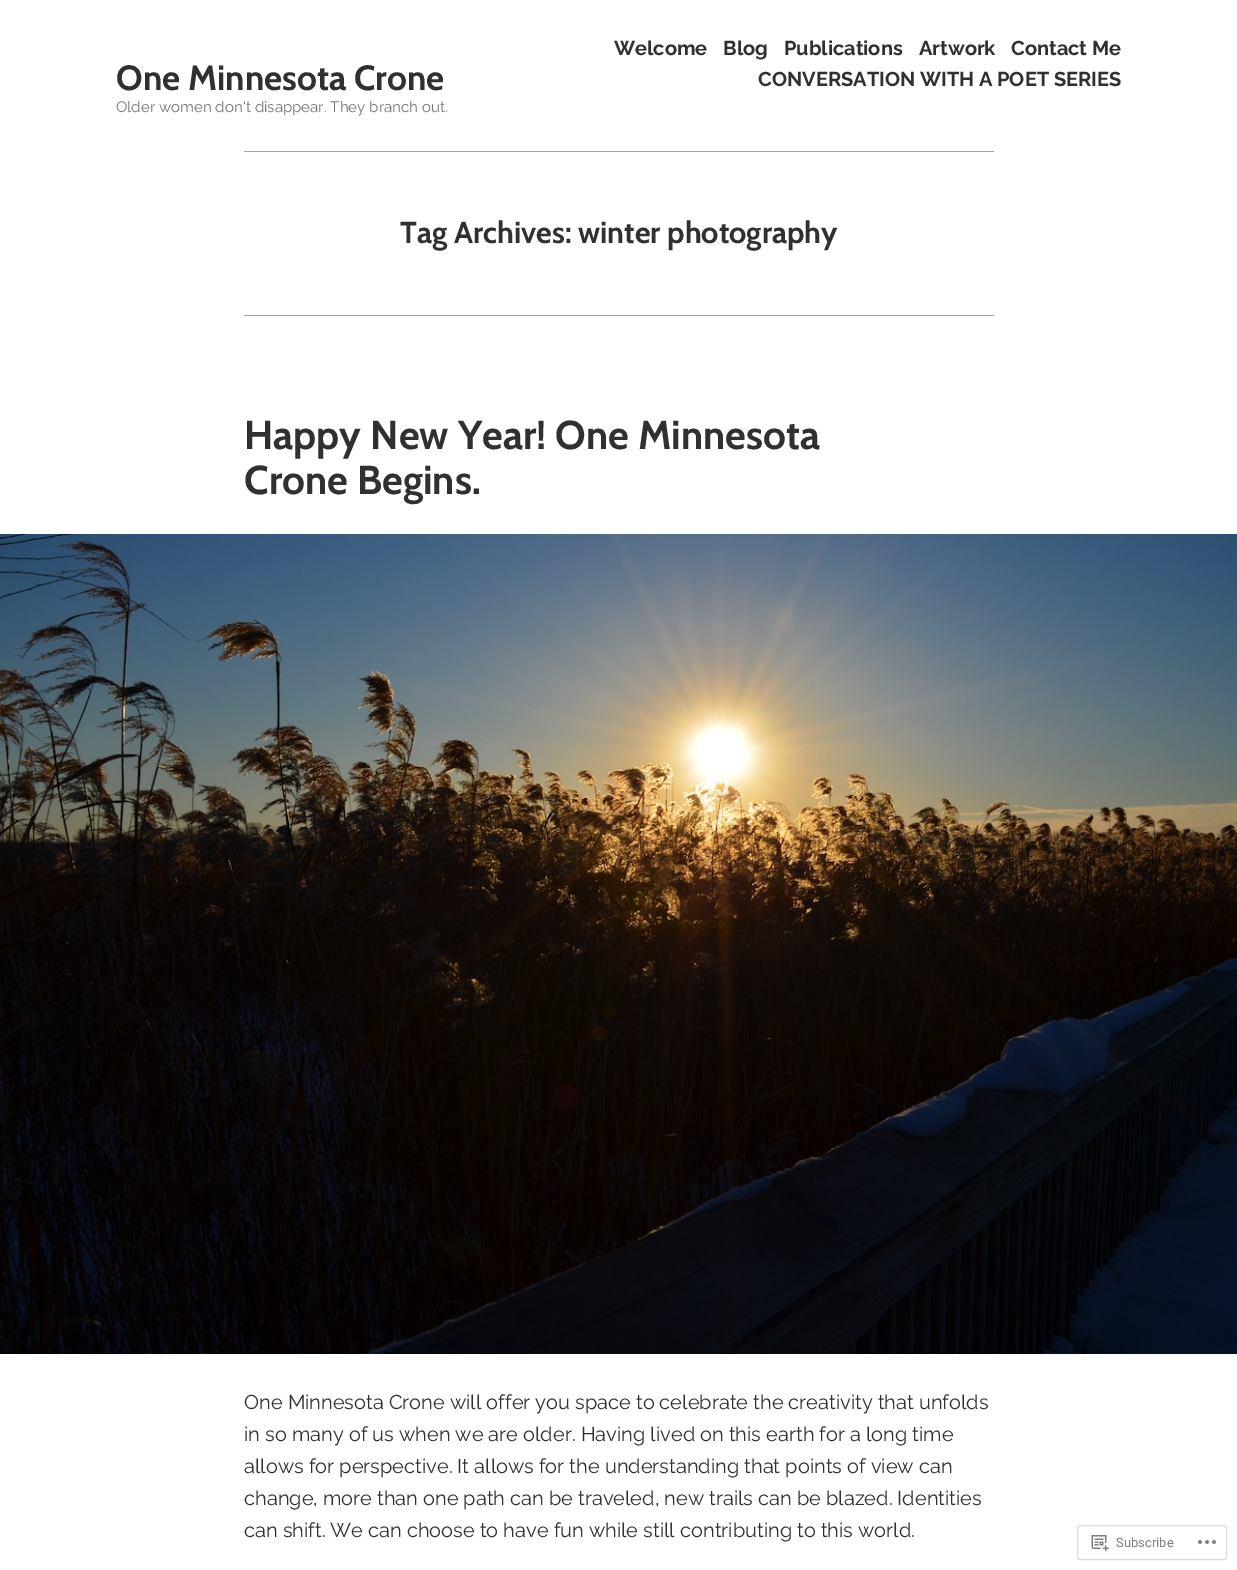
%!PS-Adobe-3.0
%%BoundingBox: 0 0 1237 1570
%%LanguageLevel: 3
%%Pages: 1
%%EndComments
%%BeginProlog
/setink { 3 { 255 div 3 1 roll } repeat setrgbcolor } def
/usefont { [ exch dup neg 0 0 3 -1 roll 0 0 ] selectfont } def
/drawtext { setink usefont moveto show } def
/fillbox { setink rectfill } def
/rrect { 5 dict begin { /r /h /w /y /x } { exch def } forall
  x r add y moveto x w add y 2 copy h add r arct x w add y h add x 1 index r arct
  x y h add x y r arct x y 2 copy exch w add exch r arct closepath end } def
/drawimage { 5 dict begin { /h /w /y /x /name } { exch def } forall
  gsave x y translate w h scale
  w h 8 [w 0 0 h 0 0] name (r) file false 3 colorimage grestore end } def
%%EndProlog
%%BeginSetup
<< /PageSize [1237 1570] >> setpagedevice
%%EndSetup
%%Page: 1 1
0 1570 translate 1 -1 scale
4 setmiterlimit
0 0 1237 1570 255 255 255 fillbox
(One Minnesota Crone) 116 90 /Cabin-Bold 35 48 48 48 drawtext
(Welcome) 614 55 /Raleway-Bold 20 48 48 48 drawtext
(Blog) 723 55 /Raleway-Bold 20 48 48 48 drawtext
(Publications) 784 55 /Raleway-Bold 20 48 48 48 drawtext
(Artwork) 919 55 /Raleway-Bold 20 48 48 48 drawtext
(Contact Me) 1011 55 /Raleway-Bold 20 48 48 48 drawtext
(CONVERSATION WITH A POET SERIES) 758 86 /Raleway-Bold 20 48 48 48 drawtext
(Older women don't disappear. They branch out.) 116 112 /Raleway-Regular 15.1 117 117 117 drawtext
244 151 750 1 165 165 165 fillbox
(Tag Archives: winter photography) 400 243 /Cabin-Bold 30.4 48 48 48 drawtext
244 315 750 1 165 165 165 fillbox
(Happy New Year! One Minnesota) 244 449 /Cabin-Bold 40.25 48 48 48 drawtext
(Crone Begins.) 244 494 /Cabin-Bold 40.25 48 48 48 drawtext
(assets/img1.rgb) 0 534 1237 820 drawimage
(One Minnesota Crone will offer you space to celebrate the creativity that unfolds) 244 1409 /Raleway-Regular 20 48 48 48 drawtext
(in so many of us when we are older. Having lived on this earth for a long time) 244 1441 /Raleway-Regular 20 48 48 48 drawtext
(allows for perspective. It allows for the understanding that points of view can) 244 1473 /Raleway-Regular 20 48 48 48 drawtext
(change, more than one path can be traveled, new trails can be blazed. Identities) 244 1505 /Raleway-Regular 20 48 48 48 drawtext
(can shift. We can choose to have fun while still contributing to this world.) 244 1537 /Raleway-Regular 20 48 48 48 drawtext
221 221 223 setink
1077.5 1525.5 149 34 2.5 rrect stroke
(assets/img2.rgb) 1091 1535 18 17 drawimage
(Subscribe) 1116 1547 /Roboto-Regular 13 123 127 133 drawtext
(assets/img3.rgb) 1198 1540 18 4 drawimage
showpage
%%EOF
